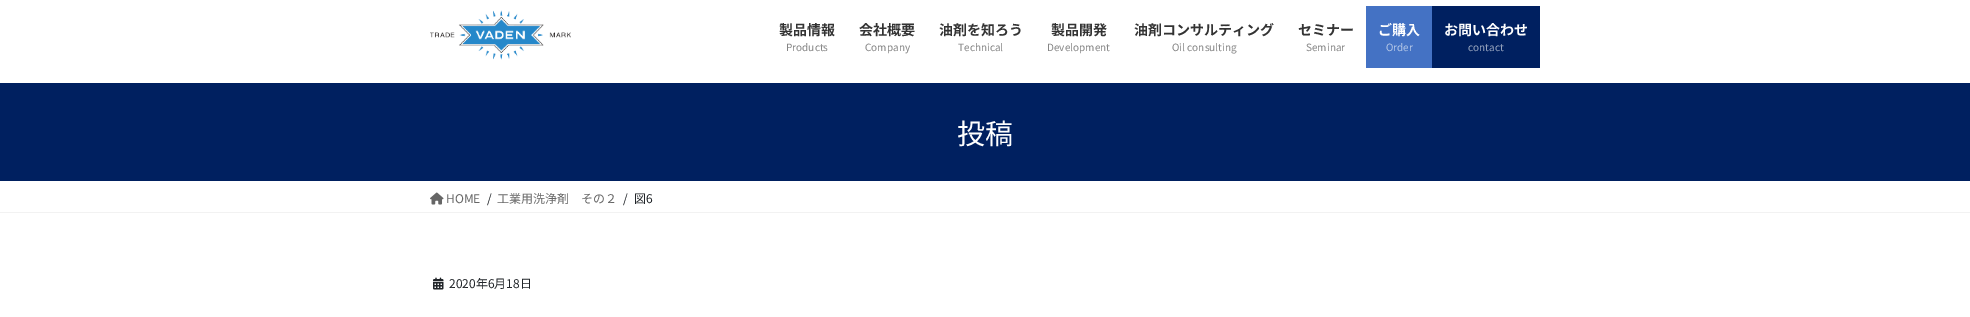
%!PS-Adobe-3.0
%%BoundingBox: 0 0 1970 317
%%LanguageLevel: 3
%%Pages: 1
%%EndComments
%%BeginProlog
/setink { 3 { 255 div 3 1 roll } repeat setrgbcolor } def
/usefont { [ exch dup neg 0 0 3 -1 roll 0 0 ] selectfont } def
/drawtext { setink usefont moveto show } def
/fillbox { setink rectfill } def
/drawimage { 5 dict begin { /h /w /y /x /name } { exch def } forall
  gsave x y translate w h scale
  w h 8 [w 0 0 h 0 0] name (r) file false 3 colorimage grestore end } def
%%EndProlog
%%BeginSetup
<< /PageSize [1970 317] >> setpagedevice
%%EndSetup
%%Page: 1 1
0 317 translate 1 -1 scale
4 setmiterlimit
0 0 1970 317 255 255 255 fillbox
(assets/img1.rgb) 430 10 141 50 drawimage
(製品情報) 779 35 /NotoSansJP-Bold 14 51 51 51 drawtext
(Products) 786 51 /NotoSansJP-Regular 10 133 133 133 drawtext
(会社概要) 859 35 /NotoSansJP-Bold 14 51 51 51 drawtext
(Company) 865 51 /NotoSansJP-Regular 10 133 133 133 drawtext
(油剤を知ろう) 939 35 /NotoSansJP-Bold 14 51 51 51 drawtext
(Technical) 958 51 /NotoSansJP-Regular 10 133 133 133 drawtext
(製品開発) 1051 35 /NotoSansJP-Bold 14 51 51 51 drawtext
(Development) 1047 51 /NotoSansJP-Regular 10 133 133 133 drawtext
(油剤コンサルティング) 1134 35 /NotoSansJP-Bold 14 51 51 51 drawtext
(Oil consulting) 1172 51 /NotoSansJP-Regular 10 133 133 133 drawtext
(セミナー) 1298 35 /NotoSansJP-Bold 14 51 51 51 drawtext
(Seminar) 1306 51 /NotoSansJP-Regular 10 133 133 133 drawtext
1366 6 66 62 68 114 196 fillbox
(ご購入) 1378 35 /NotoSansJP-Bold 14 255 255 255 drawtext
(Order) 1386 51 /NotoSansJP-Regular 10 180 199 231 drawtext
1432 6 108 62 0 32 96 fillbox
(お問い合わせ) 1444 35 /NotoSansJP-Bold 14 255 255 255 drawtext
(contact) 1468 51 /NotoSansJP-Regular 10 153 166 191 drawtext
0 83 1970 98 0 32 96 fillbox
(投稿) 957 144 /NotoSansJP-Regular 28 255 255 255 drawtext
0 212 1970 1 242 242 242 fillbox
(assets/img2.rgb) 430 192 14 13 drawimage
(HOME) 446 203 /NotoSansJP-Regular 12 102 102 102 drawtext
(/) 487 203 /NotoSansJP-Regular 12 33 37 41 drawtext
(工業用洗浄剤　その２) 497 203 /NotoSansJP-Regular 12 102 102 102 drawtext
(/) 623 203 /NotoSansJP-Regular 12 33 37 41 drawtext
(図6) 634 203 /NotoSansJP-Regular 12 33 37 41 drawtext
(assets/img3.rgb) 433 277 11 13 drawimage
(2020年6月18日) 449 288 /NotoSansJP-Regular 12 33 37 41 drawtext
showpage
%%EOF
